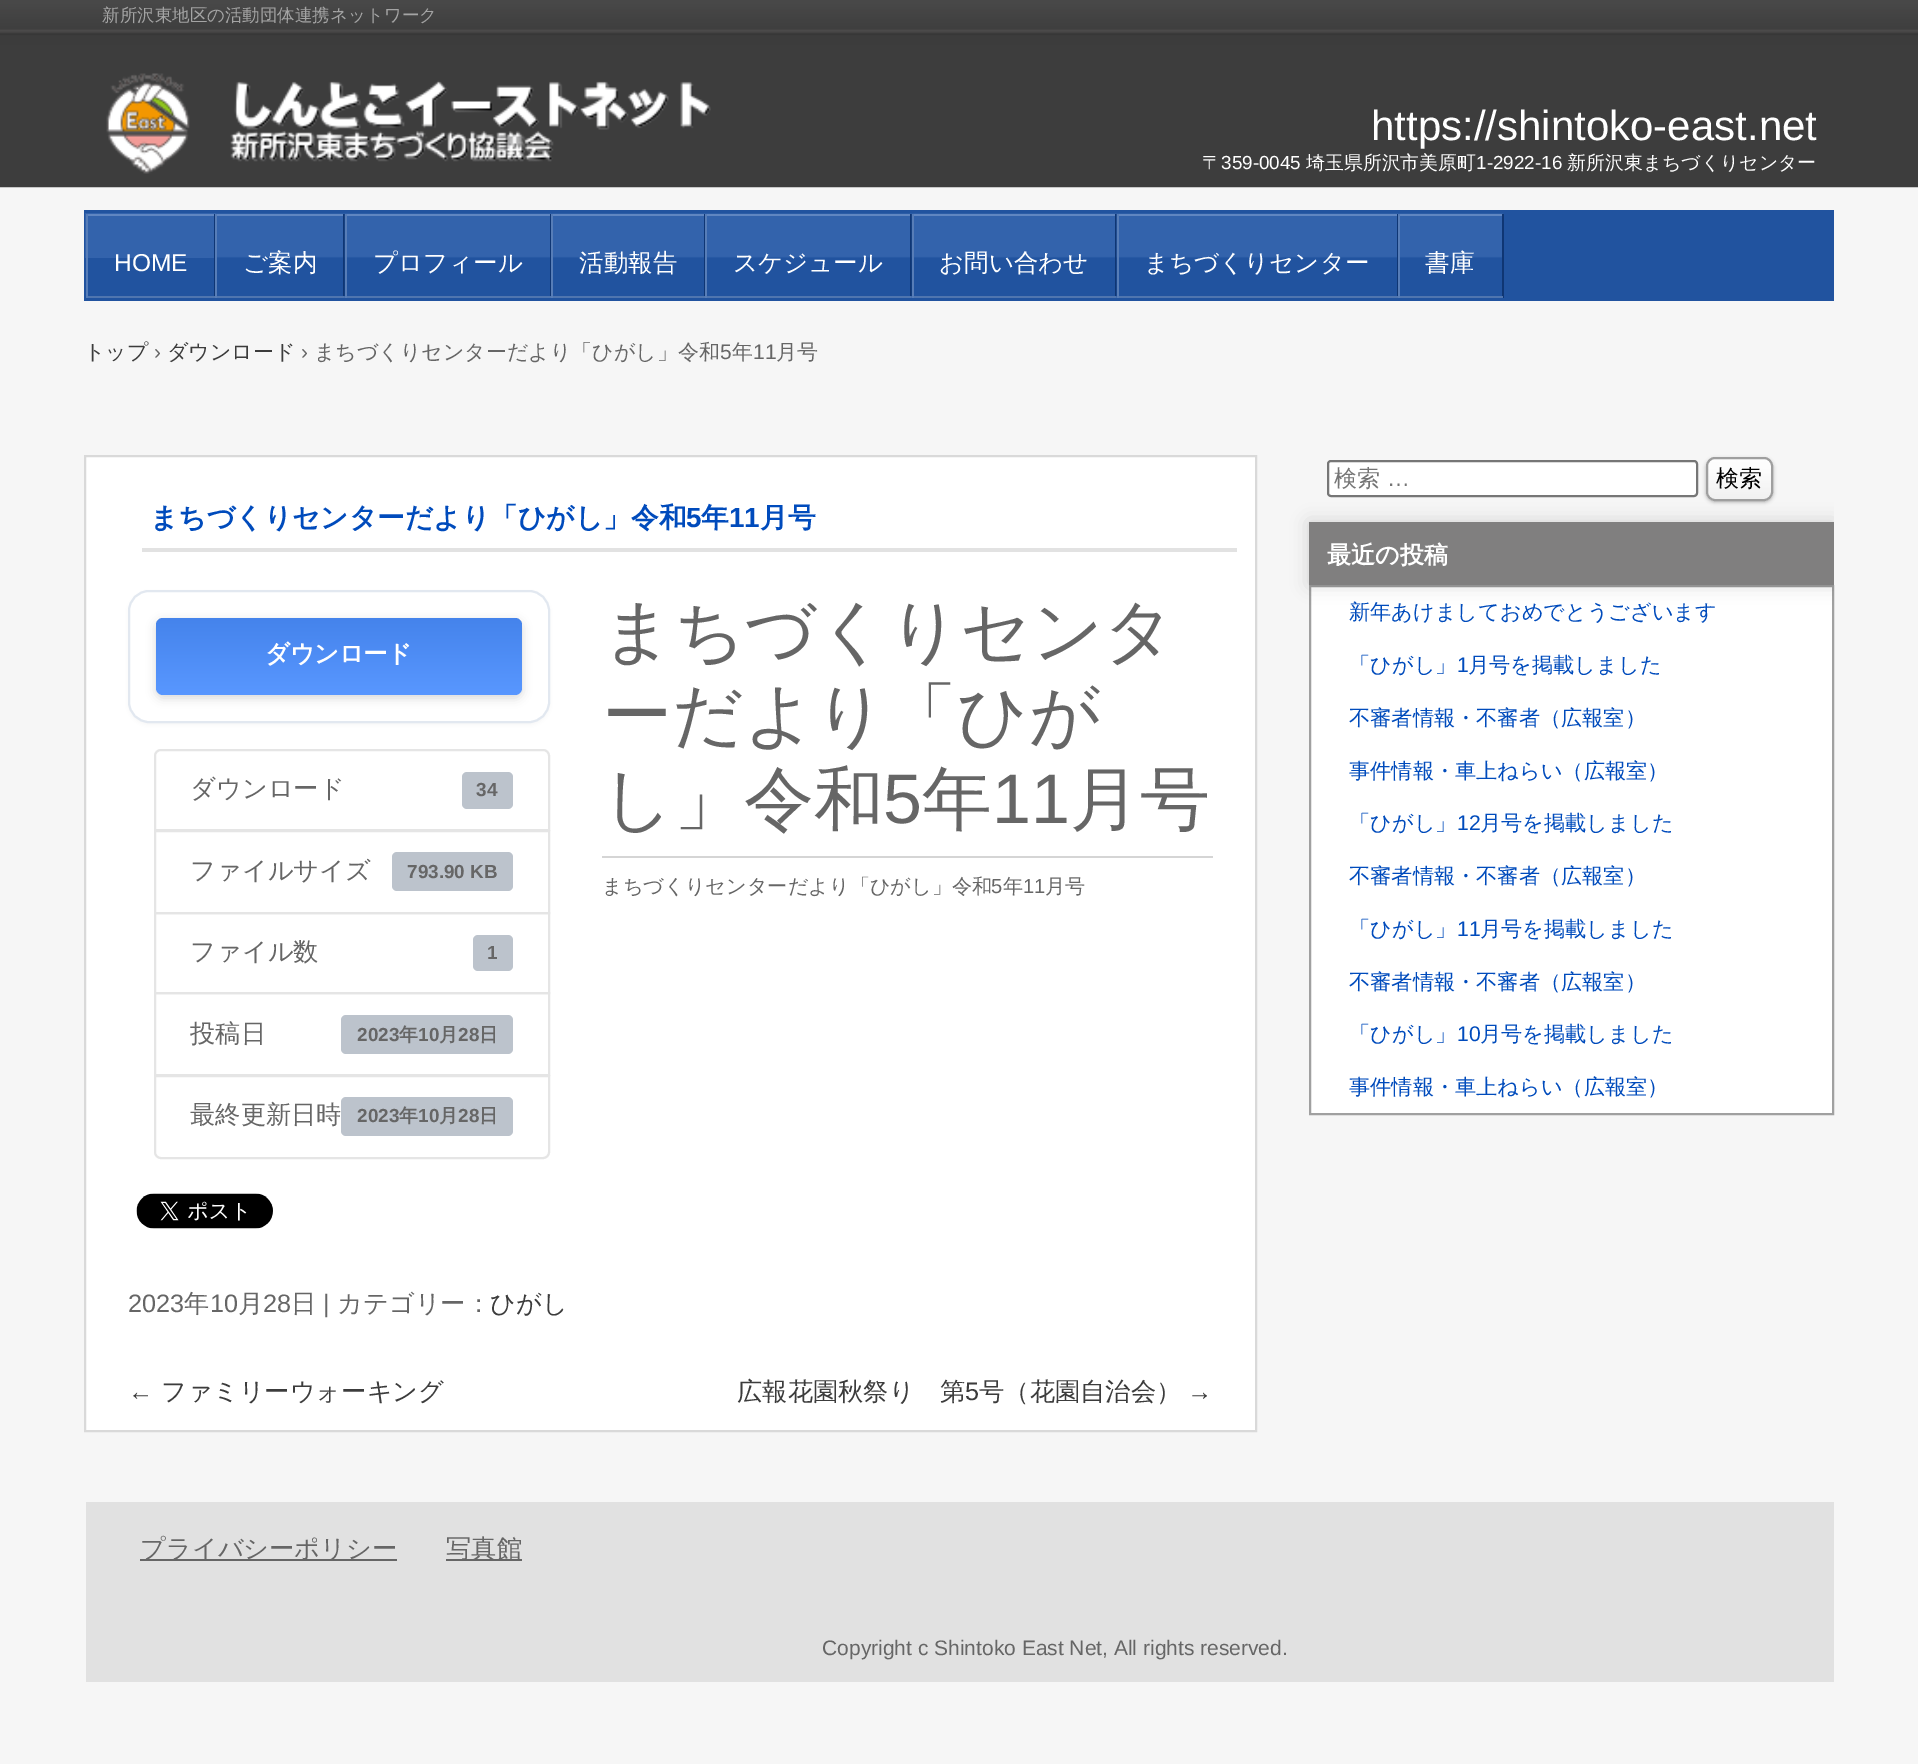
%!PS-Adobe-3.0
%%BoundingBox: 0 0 1918 1764
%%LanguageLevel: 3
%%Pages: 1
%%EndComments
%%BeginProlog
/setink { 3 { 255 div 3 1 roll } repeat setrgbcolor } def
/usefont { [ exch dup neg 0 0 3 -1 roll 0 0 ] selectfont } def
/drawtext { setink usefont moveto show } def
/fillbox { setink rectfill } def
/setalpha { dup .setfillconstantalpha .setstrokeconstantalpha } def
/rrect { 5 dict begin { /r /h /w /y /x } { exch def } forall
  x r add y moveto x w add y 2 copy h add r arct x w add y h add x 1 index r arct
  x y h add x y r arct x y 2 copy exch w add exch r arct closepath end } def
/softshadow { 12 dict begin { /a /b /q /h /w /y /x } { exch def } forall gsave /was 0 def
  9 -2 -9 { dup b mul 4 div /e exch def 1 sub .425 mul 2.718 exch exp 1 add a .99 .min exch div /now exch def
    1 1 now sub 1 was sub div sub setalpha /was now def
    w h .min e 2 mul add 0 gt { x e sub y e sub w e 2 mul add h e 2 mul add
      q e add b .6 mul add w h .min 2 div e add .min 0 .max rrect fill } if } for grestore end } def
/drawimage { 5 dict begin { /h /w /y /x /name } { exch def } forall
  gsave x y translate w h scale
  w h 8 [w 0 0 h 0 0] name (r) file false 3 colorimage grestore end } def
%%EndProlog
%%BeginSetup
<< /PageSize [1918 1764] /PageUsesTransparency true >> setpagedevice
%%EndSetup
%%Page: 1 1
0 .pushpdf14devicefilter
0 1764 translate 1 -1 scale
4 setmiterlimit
0 0 1918 1764 246 246 246 fillbox
(assets/img1.rgb) 0 0 1918 188 drawimage
(新所沢東地区の活動団体連携ネットワーク) 102 21 /WenQuanYiZenHei-Medium 17.5 164 164 164 drawtext
(assets/img2.rgb) 106 73 605 101 drawimage
(https://shintoko-east.net) 1371 140 /LiberationSans-Regular 42 255 255 255 drawtext
(〒) 1202 169 /WenQuanYiZenHei-Medium 18.9 255 255 255 drawtext
(359-0045) 1221 169 /LiberationSans-Regular 18.9 255 255 255 drawtext
(埼玉県所沢市美原町) 1306 169 /WenQuanYiZenHei-Medium 18.9 255 255 255 drawtext
(1-2922-16) 1476 169 /LiberationSans-Regular 18.9 255 255 255 drawtext
(新所沢東まちづくりセンター) 1567 169 /WenQuanYiZenHei-Medium 18.9 255 255 255 drawtext
84 210 1750 91 33 83 159 fillbox
85 213 131 45 51 99 172 fillbox
86 214 129 2 96 134 193 fillbox
214 214 1 84 15 54 116 fillbox
86 296 129 2 79 117 175 fillbox
86 214 2 84 87 125 183 fillbox
(HOME) 114 271 /LiberationSans-Regular 24.5 255 255 255 drawtext
(assets/img3.rgb) 215 213 130 83 drawimage
215 214 130 2 96 134 193 fillbox
343 214 2 84 15 54 116 fillbox
215 296 130 2 79 117 175 fillbox
215 214 2 84 87 125 183 fillbox
(ご案内) 243 271 /WenQuanYiZenHei-Medium 24.5 255 255 255 drawtext
(assets/img4.rgb) 344 213 208 85 drawimage
345 214 206 2 96 134 193 fillbox
550 214 1 84 15 54 116 fillbox
345 296 206 2 79 117 175 fillbox
345 214 2 84 87 125 183 fillbox
(プロフィール) 373 271 /WenQuanYiZenHei-Medium 24.5 255 255 255 drawtext
(assets/img5.rgb) 551 213 155 83 drawimage
551 214 154 2 96 134 193 fillbox
704 214 1 84 15 54 116 fillbox
551 296 154 2 79 117 175 fillbox
551 214 2 84 87 125 183 fillbox
(活動報告) 579 271 /WenQuanYiZenHei-Medium 24.5 255 255 255 drawtext
(assets/img6.rgb) 705 213 207 83 drawimage
705 214 207 2 96 134 193 fillbox
910 214 2 84 15 54 116 fillbox
705 296 207 2 79 117 175 fillbox
705 214 2 84 87 125 183 fillbox
(スケジュール) 733 271 /WenQuanYiZenHei-Medium 24.5 255 255 255 drawtext
(assets/img7.rgb) 911 213 206 85 drawimage
912 214 205 2 96 134 193 fillbox
1115 214 2 84 15 54 116 fillbox
912 296 205 2 79 117 175 fillbox
912 214 2 84 87 125 183 fillbox
(お問い合わせ) 939 271 /WenQuanYiZenHei-Medium 24.5 255 255 255 drawtext
(assets/img8.rgb) 1116 213 283 85 drawimage
1117 214 281 2 96 134 193 fillbox
1397 214 1 84 15 54 116 fillbox
1117 296 281 2 79 117 175 fillbox
1117 214 2 84 87 125 183 fillbox
(まちづくりセンター) 1144 271 /WenQuanYiZenHei-Medium 24.5 255 255 255 drawtext
(assets/img9.rgb) 1398 213 106 83 drawimage
1398 214 105 2 96 134 193 fillbox
1502 214 2 84 15 54 116 fillbox
1398 296 105 2 79 117 175 fillbox
1398 214 2 84 87 125 183 fillbox
(書庫) 1425 271 /WenQuanYiZenHei-Medium 24.5 255 255 255 drawtext
(トップ) 84 359 /WenQuanYiZenHei-Medium 21 60 60 60 drawtext
(›) 154 359 /LiberationSans-Regular 21 102 102 102 drawtext
(ダウンロード) 167 359 /WenQuanYiZenHei-Medium 21 60 60 60 drawtext
(›) 301 359 /LiberationSans-Regular 21 102 102 102 drawtext
(まちづくりセンターだより「ひがし」令和) 314 359 /WenQuanYiZenHei-Medium 21 102 102 102 drawtext
(5) 720 359 /LiberationSans-Regular 21 102 102 102 drawtext
(年) 732 359 /WenQuanYiZenHei-Medium 21 102 102 102 drawtext
(11) 753 359 /LiberationSans-Regular 21 102 102 102 drawtext
(月号) 776 359 /WenQuanYiZenHei-Medium 21 102 102 102 drawtext
255 255 255 setink
85 456 moveto 1256 456 lineto 1256 1431 lineto 85 1431 lineto closepath gsave fill grestore
217 217 217 setink
2 setlinewidth
stroke
142 548 1095 4 226 226 226 fillbox
(まちづくりセンターだより「ひがし」令和) 150 527 /WenQuanYiZenHei-Bold 27.75 0 75 188 drawtext
(5) 686 527 /LiberationSans-Bold 27.75 0 75 188 drawtext
(年) 701 527 /WenQuanYiZenHei-Bold 27.75 0 75 188 drawtext
(11) 729 527 /LiberationSans-Bold 27.75 0 75 188 drawtext
(月号) 760 527 /WenQuanYiZenHei-Bold 27.75 0 75 188 drawtext
0 0 0 setink
128 592 422 133 21 2.5 0.04 softshadow
255 255 255 setink
129 591 420 131 20 rrect gsave fill grestore
226 232 240 setink
stroke
0 0 0 setink
156 621 366 77 7 5 0.15 softshadow
74 142 255 setink
156 618 366 77 7 rrect fill
0.08 setalpha
gsave 156 618 366 77 7 rrect clip newpath
<< /ShadingType 2 /ColorSpace /DeviceRGB /Coords [339 618 339 695] /Extend [true true] /Function << /FunctionType 2 /Domain [0 1] /C0 [0 0 0] /C1 [1 1 1] /N 1 >> >> shfill grestore
/WenQuanYiZenHei-Bold 24.5 usefont
1 setalpha
255 255 255 setink
265 662 moveto -0.5 0 (ダウンロード) ashow
229 229 229 setink
161 750 moveto 543 750 lineto 546.5 750 549 752.5 549 756 curveto 549 830 lineto 155 830 lineto 155 756 lineto 155 752.5 157.5 750 161 750 curveto closepath stroke
(ダウンロード) 190 797 /WenQuanYiZenHei-Medium 25.25 102 102 102 drawtext
188 195 204 setink
462 772 51 37 5 rrect fill
(34) 476 796 /LiberationSans-Bold 18.9 102 102 102 drawtext
229 229 229 setink
155 831 394 82 rectstroke
(ファイルサイズ) 190 879 /WenQuanYiZenHei-Medium 25.25 102 102 102 drawtext
188 195 204 setink
392 852 121 39 5 rrect fill
(793.90 KB) 407 878 /LiberationSans-Bold 18.9 102 102 102 drawtext
229 229 229 setink
155 913 394 80 rectstroke
(ファイル数) 190 960 /WenQuanYiZenHei-Medium 25.25 102 102 102 drawtext
188 195 204 setink
473 935 40 36 5 rrect fill
(1) 487 959 /LiberationSans-Bold 18.9 102 102 102 drawtext
229 229 229 setink
155 993 394 82 rectstroke
(投稿日) 190 1042 /WenQuanYiZenHei-Medium 25.25 102 102 102 drawtext
188 195 204 setink
341 1015 172 39 5 rrect fill
(2023) 357 1041 /LiberationSans-Bold 18.9 102 102 102 drawtext
(年) 399 1041 /WenQuanYiZenHei-Bold 18.9 102 102 102 drawtext
(10) 418 1041 /LiberationSans-Bold 18.9 102 102 102 drawtext
(月) 439 1041 /WenQuanYiZenHei-Bold 18.9 102 102 102 drawtext
(28) 458 1041 /LiberationSans-Bold 18.9 102 102 102 drawtext
(日) 479 1041 /WenQuanYiZenHei-Bold 18.9 102 102 102 drawtext
255 255 255 setink
155 1076 moveto 549 1076 lineto 549 1152 lineto 549 1155.5 546.5 1158 543 1158 curveto 161 1158 lineto 157.5 1158 155 1155.5 155 1152 curveto closepath gsave fill grestore
229 229 229 setink
stroke
(最終更新日時) 190 1123 /WenQuanYiZenHei-Medium 25.25 102 102 102 drawtext
188 195 204 setink
341 1097 172 39 5 rrect fill
(2023) 357 1122 /LiberationSans-Bold 18.9 102 102 102 drawtext
(年) 399 1122 /WenQuanYiZenHei-Bold 18.9 102 102 102 drawtext
(10) 418 1122 /LiberationSans-Bold 18.9 102 102 102 drawtext
(月) 439 1122 /WenQuanYiZenHei-Bold 18.9 102 102 102 drawtext
(28) 458 1122 /LiberationSans-Bold 18.9 102 102 102 drawtext
(日) 479 1122 /WenQuanYiZenHei-Bold 18.9 102 102 102 drawtext
602 856 611 2 213 213 213 fillbox
(まちづくりセンタ) 602 655 /WenQuanYiZenHei-Medium 70 102 102 102 drawtext
(ーだより「ひが) 602 739 /WenQuanYiZenHei-Medium 70 102 102 102 drawtext
(し」令和) 602 823 /WenQuanYiZenHei-Medium 70 102 102 102 drawtext
(5) 883 823 /LiberationSans-Regular 70 102 102 102 drawtext
(年) 922 823 /WenQuanYiZenHei-Medium 70 102 102 102 drawtext
(11) 992 823 /LiberationSans-Regular 70 102 102 102 drawtext
(月号) 1070 823 /WenQuanYiZenHei-Medium 70 102 102 102 drawtext
(まちづくりセンターだより「ひがし」令和) 602 893 /WenQuanYiZenHei-Medium 20.2 102 102 102 drawtext
(5) 991 893 /LiberationSans-Regular 20.2 102 102 102 drawtext
(年) 1003 893 /WenQuanYiZenHei-Medium 20.2 102 102 102 drawtext
(11) 1023 893 /LiberationSans-Regular 20.2 102 102 102 drawtext
(月号) 1045 893 /WenQuanYiZenHei-Medium 20.2 102 102 102 drawtext
(assets/img10.rgb) 136 1193 137 36 drawimage
(2023) 128 1312 /LiberationSans-Regular 25.25 102 102 102 drawtext
(年) 184 1312 /WenQuanYiZenHei-Medium 25.25 102 102 102 drawtext
(10) 210 1312 /LiberationSans-Regular 25.25 102 102 102 drawtext
(月) 238 1312 /WenQuanYiZenHei-Medium 25.25 102 102 102 drawtext
(28) 263 1312 /LiberationSans-Regular 25.25 102 102 102 drawtext
(日) 291 1312 /WenQuanYiZenHei-Medium 25.25 102 102 102 drawtext
(|) 323 1312 /LiberationSans-Regular 25.25 102 102 102 drawtext
(カテゴリー：) 337 1312 /WenQuanYiZenHei-Medium 25.25 102 102 102 drawtext
(ひがし) 490 1312 /WenQuanYiZenHei-Medium 25.25 60 60 60 drawtext
(←) 128 1400 /LiberationSans-Regular 25.25 60 60 60 drawtext
(ファミリーウォーキング) 161 1400 /WenQuanYiZenHei-Medium 25.25 60 60 60 drawtext
(広報花園秋祭り　第) 737 1400 /WenQuanYiZenHei-Medium 25.25 60 60 60 drawtext
(5) 965 1400 /LiberationSans-Regular 25.25 60 60 60 drawtext
(号（花園自治会）) 979 1400 /WenQuanYiZenHei-Medium 25.25 60 60 60 drawtext
(→) 1187 1400 /LiberationSans-Regular 25.25 60 60 60 drawtext
255 255 255 setink
1328 461 369 35 3 rrect gsave fill grestore
118 118 118 setink
stroke
(検索) 1334 486 /WenQuanYiZenHei-Medium 23 117 117 117 drawtext
(…) 1387 486 /LiberationSans-Regular 23 117 117 117 drawtext
0 0 0 setink
1706 459 67 43 9 2 0.3 softshadow
(assets/img11.rgb) 1706 459 67 42 drawimage
159 159 159 setink
1707 458 65 42 8 rrect stroke
(検索) 1716 486 /WenQuanYiZenHei-Medium 23 0 0 0 drawtext
255 255 255 setink
1310 586 moveto 1833 586 lineto 1833 1114 lineto 1310 1114 lineto closepath gsave fill grestore
160 160 160 setink
stroke
gsave
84 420 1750 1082 rectclip
0 0 0 setink
1309 522 525 63 0 9 0.15 softshadow
grestore
1309 522 525 63 128 127 127 fillbox
(最近の投稿) 1327 563 /WenQuanYiZenHei-Bold 24 255 255 255 drawtext
(新年あけましておめでとうございます) 1349 619 /WenQuanYiZenHei-Medium 21.2 0 75 188 drawtext
(「ひがし」) 1349 672 /WenQuanYiZenHei-Medium 21.2 0 75 188 drawtext
(1) 1457 672 /LiberationSans-Regular 21.2 0 75 188 drawtext
(月号を掲載しました) 1468 672 /WenQuanYiZenHei-Medium 21.2 0 75 188 drawtext
(不審者情報・不審者（広報室）) 1349 725 /WenQuanYiZenHei-Medium 21.2 0 75 188 drawtext
(事件情報・車上ねらい（広報室）) 1349 778 /WenQuanYiZenHei-Medium 21.2 0 75 188 drawtext
(「ひがし」) 1349 830 /WenQuanYiZenHei-Medium 21.2 0 75 188 drawtext
(12) 1457 830 /LiberationSans-Regular 21.2 0 75 188 drawtext
(月号を掲載しました) 1480 830 /WenQuanYiZenHei-Medium 21.2 0 75 188 drawtext
(不審者情報・不審者（広報室）) 1349 883 /WenQuanYiZenHei-Medium 21.2 0 75 188 drawtext
(「ひがし」) 1349 936 /WenQuanYiZenHei-Medium 21.2 0 75 188 drawtext
(11) 1457 936 /LiberationSans-Regular 21.2 0 75 188 drawtext
(月号を掲載しました) 1480 936 /WenQuanYiZenHei-Medium 21.2 0 75 188 drawtext
(不審者情報・不審者（広報室）) 1349 989 /WenQuanYiZenHei-Medium 21.2 0 75 188 drawtext
(「ひがし」) 1349 1041 /WenQuanYiZenHei-Medium 21.2 0 75 188 drawtext
(10) 1457 1041 /LiberationSans-Regular 21.2 0 75 188 drawtext
(月号を掲載しました) 1480 1041 /WenQuanYiZenHei-Medium 21.2 0 75 188 drawtext
(事件情報・車上ねらい（広報室）) 1349 1094 /WenQuanYiZenHei-Medium 21.2 0 75 188 drawtext
86 1502 1748 180 225 225 225 fillbox
140 1559 257 2 102 102 102 fillbox
(プライバシーポリシー) 140 1557 /WenQuanYiZenHei-Medium 25.25 102 102 102 drawtext
446 1559 76 2 102 102 102 fillbox
(写真館) 446 1557 /WenQuanYiZenHei-Medium 25.25 102 102 102 drawtext
(Copyright c Shintoko East Net, All rights reserved.) 822 1655 /LiberationSans-Regular 21 102 102 102 drawtext
.poppdf14devicefilter showpage
%%EOF
